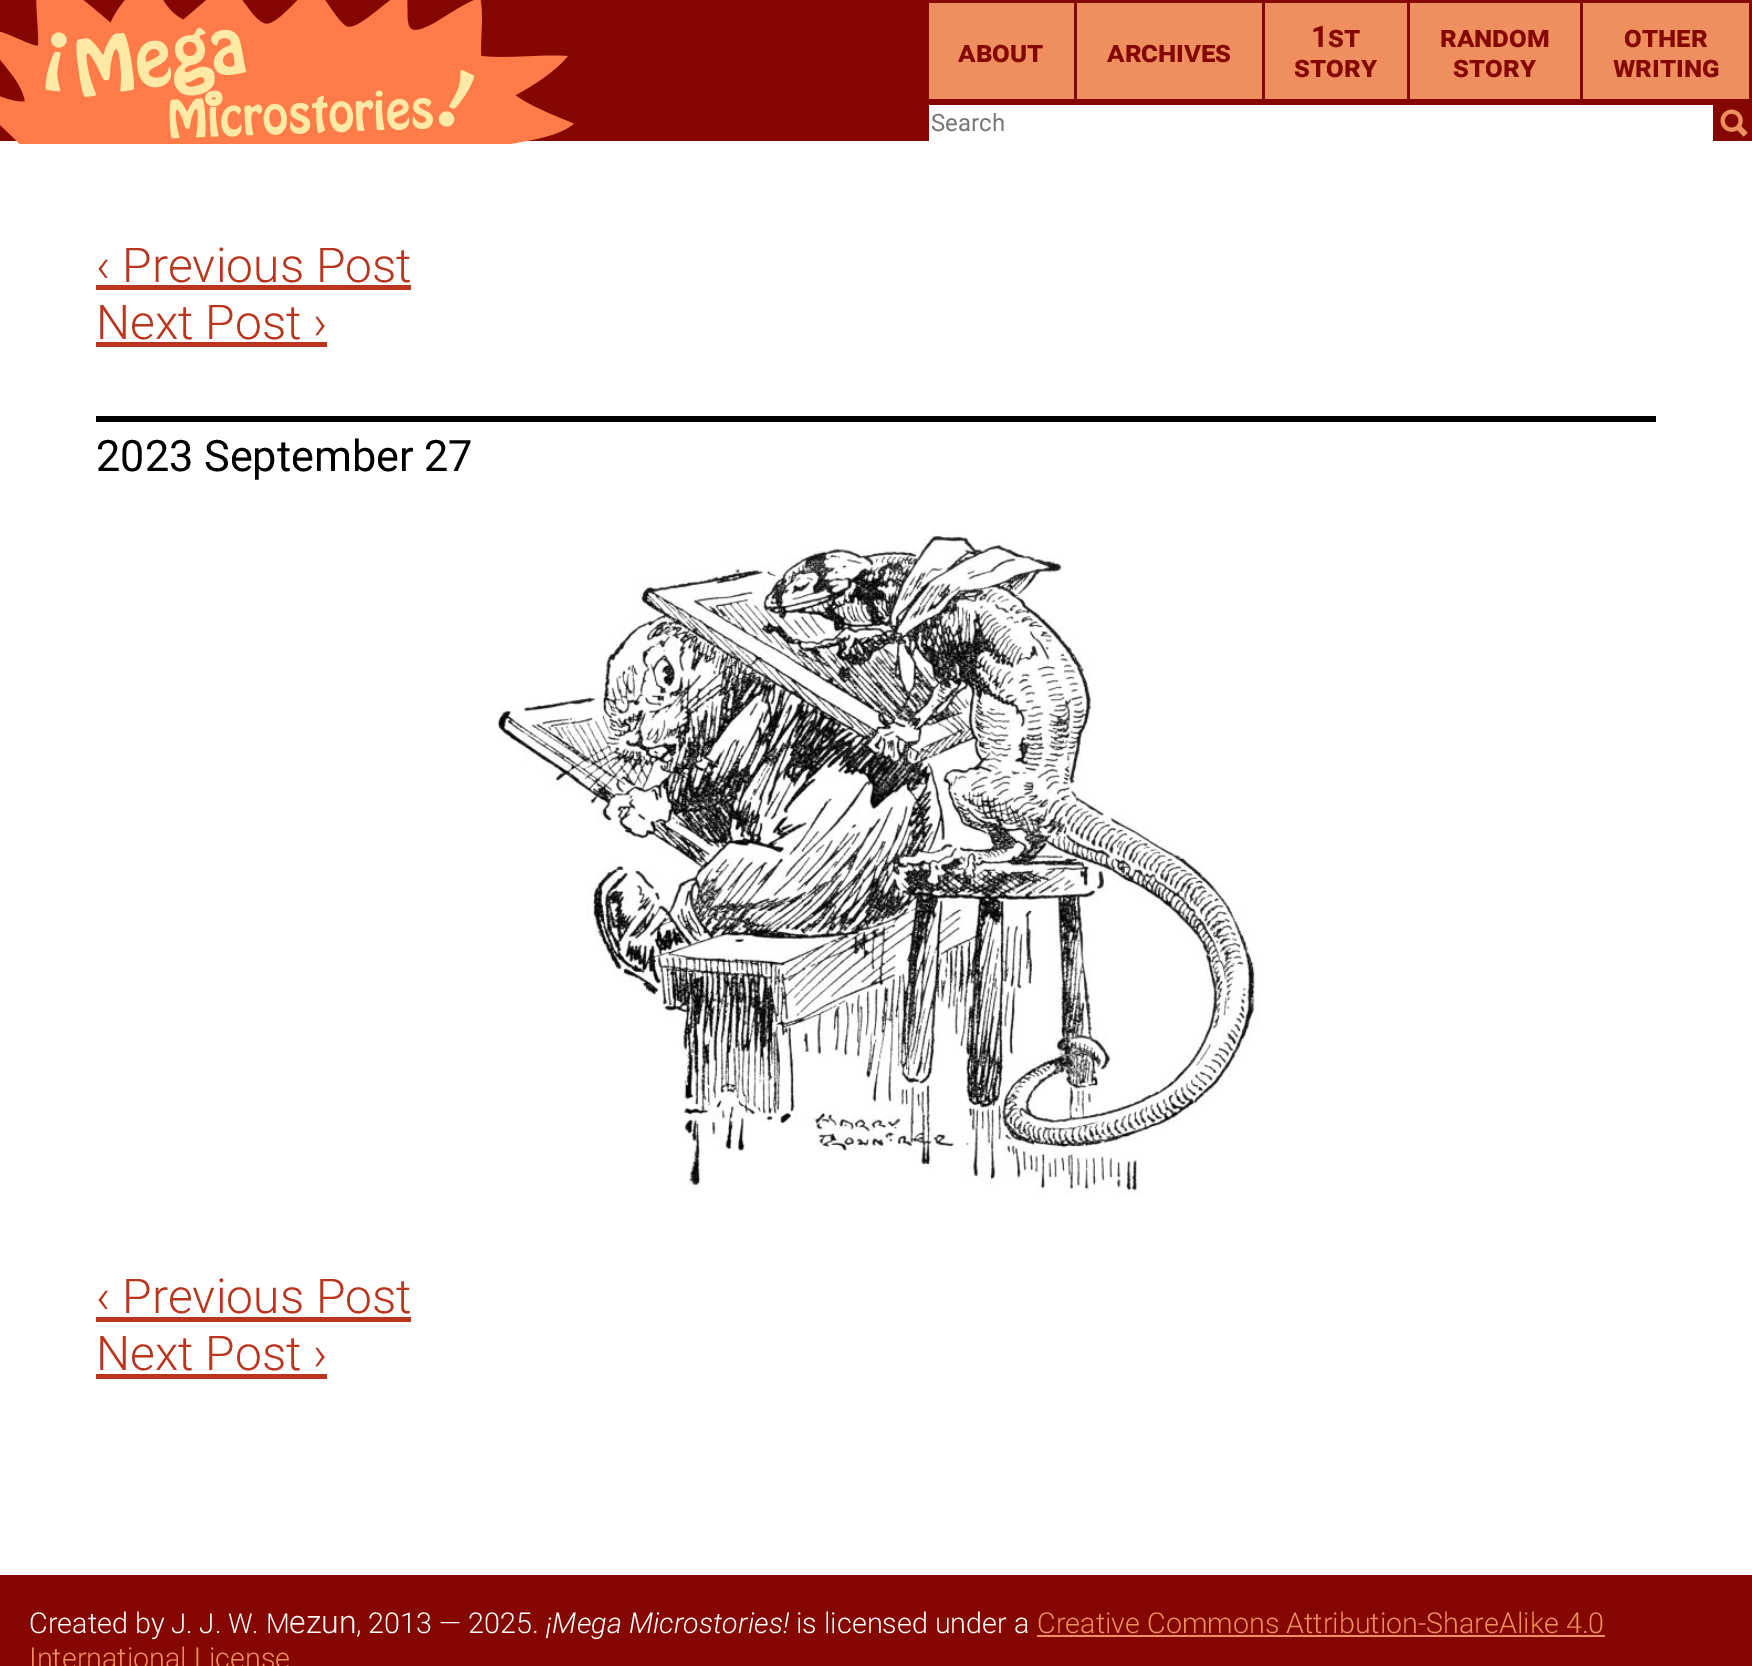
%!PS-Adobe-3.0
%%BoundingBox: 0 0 1752 1666
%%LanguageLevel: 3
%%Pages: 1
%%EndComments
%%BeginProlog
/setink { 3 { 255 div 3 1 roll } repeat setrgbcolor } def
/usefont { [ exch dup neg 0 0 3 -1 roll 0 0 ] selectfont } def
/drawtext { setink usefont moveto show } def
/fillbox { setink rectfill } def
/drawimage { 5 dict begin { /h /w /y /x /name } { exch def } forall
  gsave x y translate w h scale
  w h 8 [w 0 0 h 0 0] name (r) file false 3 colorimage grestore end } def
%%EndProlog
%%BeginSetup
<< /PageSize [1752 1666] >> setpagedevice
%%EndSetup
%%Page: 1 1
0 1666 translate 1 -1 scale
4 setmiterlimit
0 0 1752 1666 255 255 255 fillbox
0 0 1752 141 132 8 1 fillbox
(assets/img1.rgb) 0 0 574 144 drawimage
929 3 145 96 239 142 95 fillbox
(about) 958 62 /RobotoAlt-Bold 30 132 8 1 drawtext
1077 3 185 96 239 142 95 fillbox
(archives) 1107 62 /RobotoAlt-Bold 30 132 8 1 drawtext
1265 3 142 96 239 142 95 fillbox
(1st) 1311 47 /RobotoAlt-Bold 30 132 8 1 drawtext
(story) 1294 77 /RobotoAlt-Bold 30 132 8 1 drawtext
1410 3 170 96 239 142 95 fillbox
(random) 1440 47 /RobotoAlt-Bold 30 132 8 1 drawtext
(story) 1453 77 /RobotoAlt-Bold 30 132 8 1 drawtext
1583 3 166 96 239 142 95 fillbox
(other) 1624 47 /RobotoAlt-Bold 30 132 8 1 drawtext
(writing) 1613 77 /RobotoAlt-Bold 30 132 8 1 drawtext
929 105 784 36 255 255 255 fillbox
(Search) 931 131 /Roboto-Regular 24 117 117 117 drawtext
(assets/img2.rgb) 1720 109 28 28 drawimage
(‹ Previous Post) 96 282 /Roboto-Light 48 186 53 30 drawtext
96 285 315 5 186 53 30 fillbox
(Next Post ›) 96 339 /Roboto-Light 48 186 53 30 drawtext
96 342 231 5 186 53 30 fillbox
96 416 1560 6 0 0 0 fillbox
(2023 September 27) 96 471 /Roboto-Regular 43.25 0 0 0 drawtext
(assets/img3.rgb) 497 531 762 664 drawimage
(‹ Previous Post) 96 1313 /Roboto-Light 48 186 53 30 drawtext
96 1317 315 5 186 53 30 fillbox
(Next Post ›) 96 1370 /Roboto-Light 48 186 53 30 drawtext
96 1374 231 5 186 53 30 fillbox
0 1575 1752 91 132 8 1 fillbox
(Created by) 29 1633 /Roboto-Light 28.75 255 255 255 drawtext
(J. J. W. M) 171 1633 /Roboto-Light 27.5 255 255 255 drawtext
(ezun) 289 1633 /Roboto-Light 32 255 255 255 drawtext
(, 2013 — 2025.) 356 1633 /Roboto-Light 28.75 255 255 255 drawtext
(¡Mega Microstories!) 546 1633 /Roboto-LightItalic 28.75 255 255 255 drawtext
(is licensed under a) 796 1633 /Roboto-Light 28.75 255 255 255 drawtext
(Creative Commons Attribution-ShareAlike 4.0) 1037 1633 /Roboto-Light 28.75 239 142 95 drawtext
1037 1635 568 2 239 142 95 fillbox
(International License) 29 1668 /Roboto-Light 28.75 239 142 95 drawtext
showpage
%%EOF
